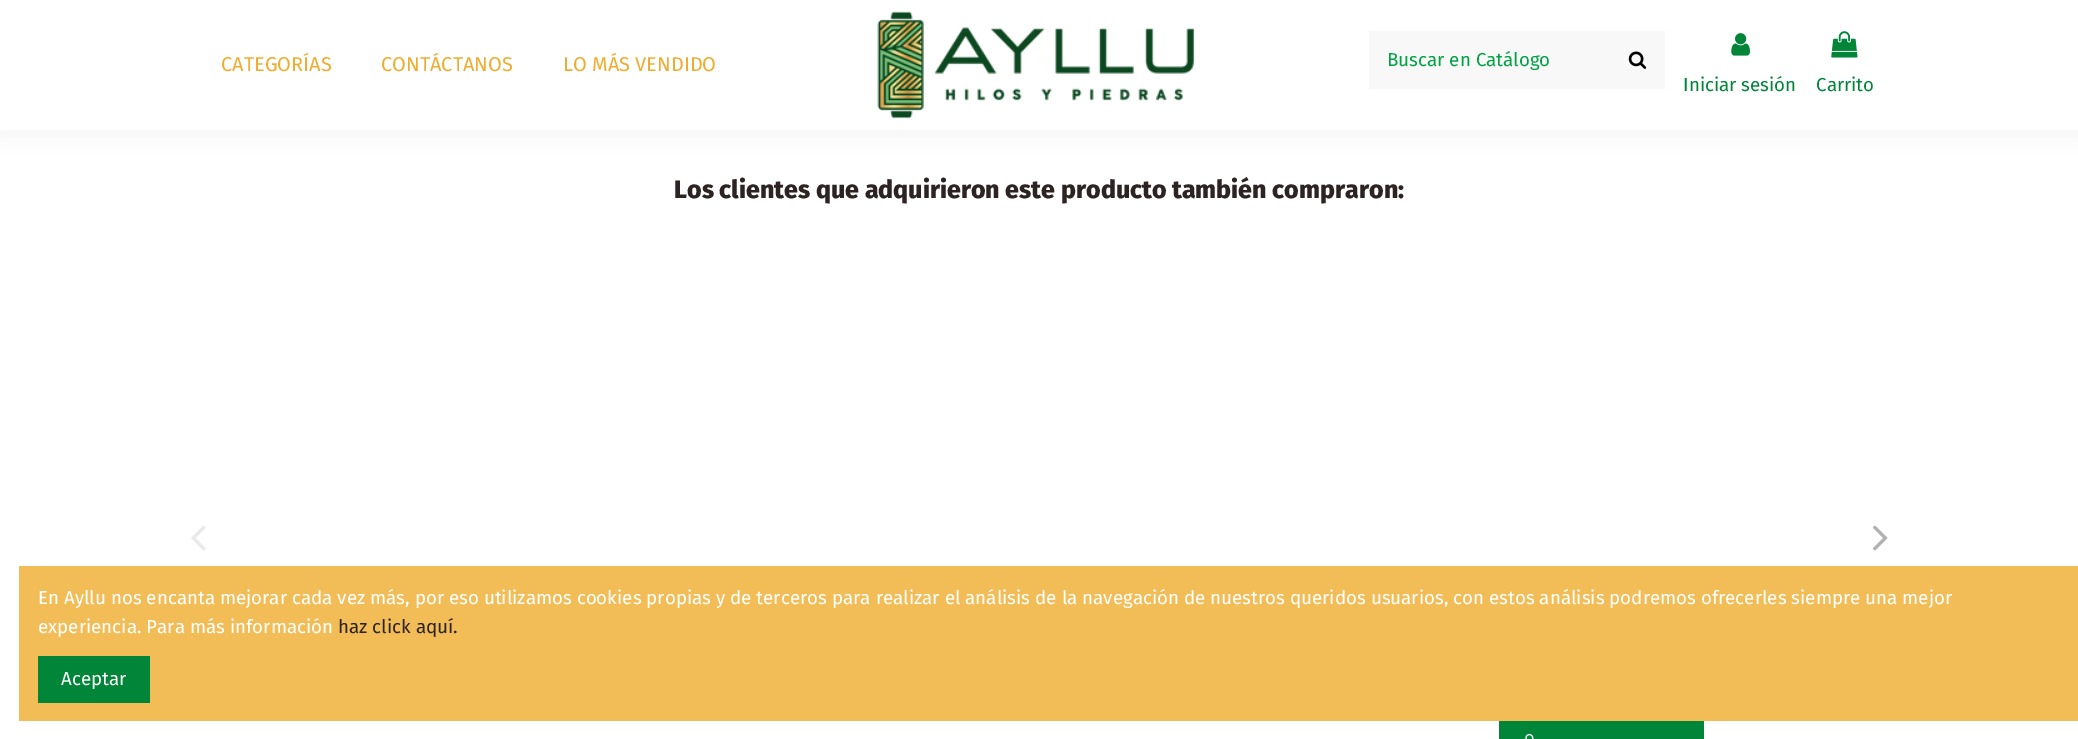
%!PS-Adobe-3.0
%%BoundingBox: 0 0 2078 739
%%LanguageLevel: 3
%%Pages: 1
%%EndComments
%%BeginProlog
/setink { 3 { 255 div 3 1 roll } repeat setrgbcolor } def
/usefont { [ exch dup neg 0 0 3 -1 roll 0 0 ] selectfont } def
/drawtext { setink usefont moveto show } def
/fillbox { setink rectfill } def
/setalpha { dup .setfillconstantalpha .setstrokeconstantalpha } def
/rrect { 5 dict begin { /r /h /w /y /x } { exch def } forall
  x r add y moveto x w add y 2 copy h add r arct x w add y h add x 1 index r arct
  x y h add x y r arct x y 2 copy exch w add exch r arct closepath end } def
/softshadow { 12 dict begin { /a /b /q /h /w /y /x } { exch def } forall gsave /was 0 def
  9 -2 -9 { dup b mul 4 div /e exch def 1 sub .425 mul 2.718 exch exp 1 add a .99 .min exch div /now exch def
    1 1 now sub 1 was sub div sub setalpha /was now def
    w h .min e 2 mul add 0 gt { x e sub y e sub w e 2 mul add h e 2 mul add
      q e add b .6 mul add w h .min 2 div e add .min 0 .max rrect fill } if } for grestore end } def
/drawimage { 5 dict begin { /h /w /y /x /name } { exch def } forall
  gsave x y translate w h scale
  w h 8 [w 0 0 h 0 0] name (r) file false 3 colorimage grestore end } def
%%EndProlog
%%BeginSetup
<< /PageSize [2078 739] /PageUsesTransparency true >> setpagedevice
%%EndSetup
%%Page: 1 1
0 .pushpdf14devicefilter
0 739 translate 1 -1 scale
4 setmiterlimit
0 0 2078 739 255 255 255 fillbox
0 0 0 setink
0 0 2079 134 0 12.5 0.05 softshadow
0 0 2078 130 255 255 255 fillbox
0 130 2078 4 248 248 248 fillbox
(CATEGORÍAS) 221 71 /FiraSans-Regular 20 239 172 46 drawtext
(CONTÁCTANOS) 381 71 /FiraSans-Regular 20 239 172 46 drawtext
(LO MÁS VENDIDO) 563 71 /FiraSans-Regular 20 239 172 46 drawtext
(assets/img1.rgb) 877 11 318 108 drawimage
1369 31 296 58 248 248 248 fillbox
(Buscar en Catálogo) 1387 66 /FiraSans-Regular 18.75 1 162 68 drawtext
(assets/img2.rgb) 1628 51 19 18 drawimage
(assets/img3.rgb) 1731 33 19 23 drawimage
(Iniciar sesión) 1683 91 /FiraSans-Regular 18.75 1 133 57 drawtext
(assets/img4.rgb) 1831 31 27 27 drawimage
(Carrito) 1816 91 /FiraSans-Regular 18.75 1 133 57 drawtext
(Los clientes que adquirieron este producto también compraron:) 674 198 /FiraSans-ExtraBold 25 46 35 35 drawtext
(assets/img5.rgb) 191 525 15 26 drawimage
(assets/img6.rgb) 1873 525 15 26 drawimage
1499 721 205 18 1 133 57 fillbox
(assets/img7.rgb) 1525 733 9 6 drawimage
19 566 2059 155 242 189 87 fillbox
(En Ayllu nos encanta mejorar cada vez más, por eso utilizamos cookies propias y de terceros para realizar el análisis de la navegación de nuestros queridos usuarios, con estos análisis podremos ofrecerles siempre una mejor) 38 604 /FiraSans-Regular 18.75 255 255 255 drawtext
(experiencia. Para más información) 38 633 /FiraSans-Regular 18.75 255 255 255 drawtext
(haz click aquí.) 338 633 /FiraSans-Regular 18.75 46 35 35 drawtext
38 656 112 47 1 133 57 fillbox
(Aceptar) 61 685 /FiraSans-Regular 18.75 255 255 255 drawtext
.poppdf14devicefilter showpage
%%EOF
